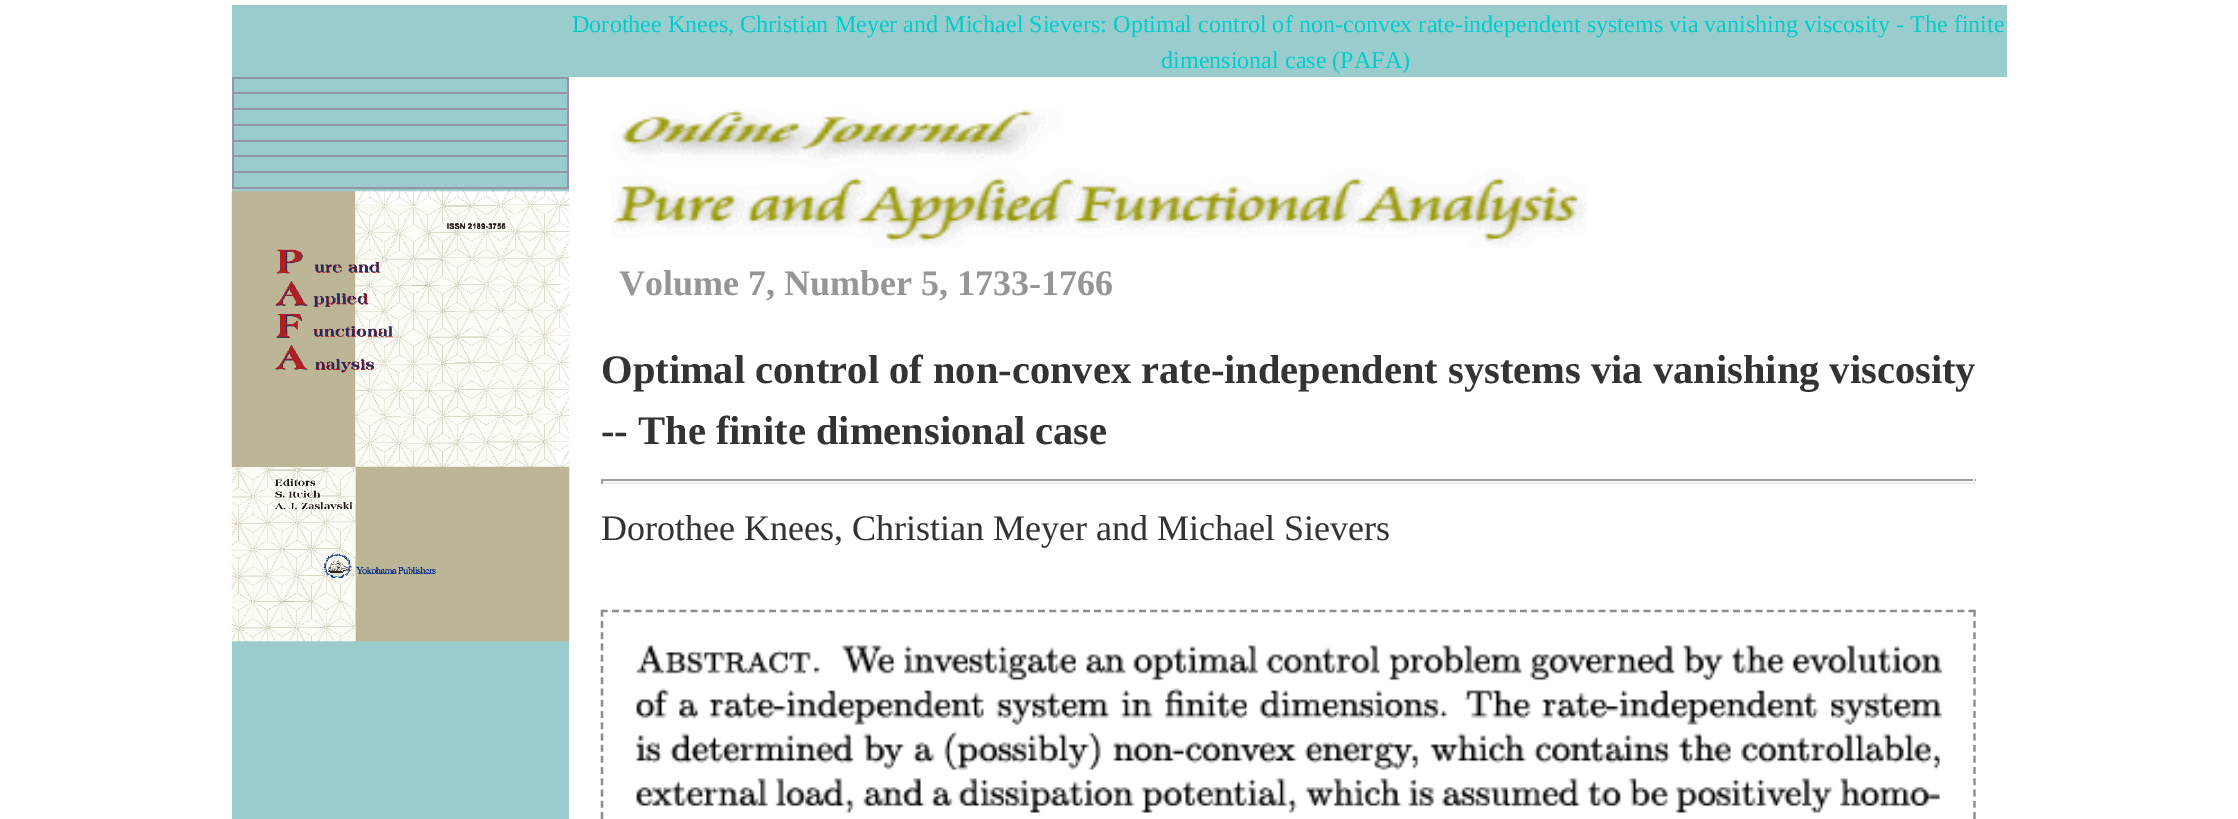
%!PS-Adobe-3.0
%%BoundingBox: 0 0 2238 819
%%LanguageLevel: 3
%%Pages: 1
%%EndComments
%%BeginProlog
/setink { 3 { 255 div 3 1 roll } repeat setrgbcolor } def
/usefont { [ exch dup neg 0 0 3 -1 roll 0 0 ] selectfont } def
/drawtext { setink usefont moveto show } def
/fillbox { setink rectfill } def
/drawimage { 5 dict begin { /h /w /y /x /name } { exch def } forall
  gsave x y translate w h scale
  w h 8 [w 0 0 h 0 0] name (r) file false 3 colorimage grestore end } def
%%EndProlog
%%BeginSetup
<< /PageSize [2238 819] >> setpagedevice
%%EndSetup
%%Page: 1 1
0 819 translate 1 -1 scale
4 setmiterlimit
0 0 2238 819 255 255 255 fillbox
232 5 1775 72 154 204 205 fillbox
(Dorothee Knees, Christian Meyer and Michael Sievers: Optimal control of non-convex rate-independent systems via vanishing viscosity - The finite) 572 32 /LiberationSerif-Regular 24.12 0 204 204 drawtext
(dimensional case \(PAFA\)) 1161 68 /LiberationSerif-Regular 24.12 0 204 204 drawtext
232 79 337 740 154 204 205 fillbox
232 77 337 2 147 149 162 fillbox
567 79 2 110 147 149 162 fillbox
232 92 337 2 147 149 162 fillbox
232 79 2 16 147 149 162 fillbox
232 108 337 2 147 149 162 fillbox
232 95 2 15 147 149 162 fillbox
232 124 337 2 147 149 162 fillbox
232 110 2 16 147 149 162 fillbox
232 140 337 2 147 149 162 fillbox
232 126 2 16 147 149 162 fillbox
232 155 337 2 147 149 162 fillbox
232 142 2 16 147 149 162 fillbox
232 171 337 2 147 149 162 fillbox
232 158 2 15 147 149 162 fillbox
232 187 337 2 147 149 162 fillbox
232 173 2 16 147 149 162 fillbox
(assets/img1.rgb) 231 191 339 451 drawimage
(assets/img2.rgb) 611 109 976 139 drawimage
(Volume 7, Number 5, 1733-1766) 619 295 /LiberationSerif-Bold 36 150 150 150 drawtext
(Optimal control of non-convex rate-independent systems via vanishing viscosity) 601 383 /LiberationSerif-Bold 40.5 51 51 51 drawtext
(-- The finite dimensional case) 601 444 /LiberationSerif-Bold 40.5 51 51 51 drawtext
601 479 1375 2 159 159 159 fillbox
1973 479 2 5 238 238 238 fillbox
601 482 1375 2 238 238 238 fillbox
601 479 2 5 159 159 159 fillbox
(Dorothee Knees, Christian Meyer and Michael Sievers) 601 540 /LiberationSerif-Regular 36 51 51 51 drawtext
142 142 142 setink
2.2 setlinewidth
[6.75 4.46] 0 setdash
601 611 moveto 1975.5 611 lineto stroke
[6.75 4.48] 0 setdash
1974.5 610 moveto 1974.5 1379 lineto stroke
602 610 moveto 602 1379 lineto stroke
(assets/img3.rgb) 636 643 1306 170 drawimage
showpage
%%EOF
